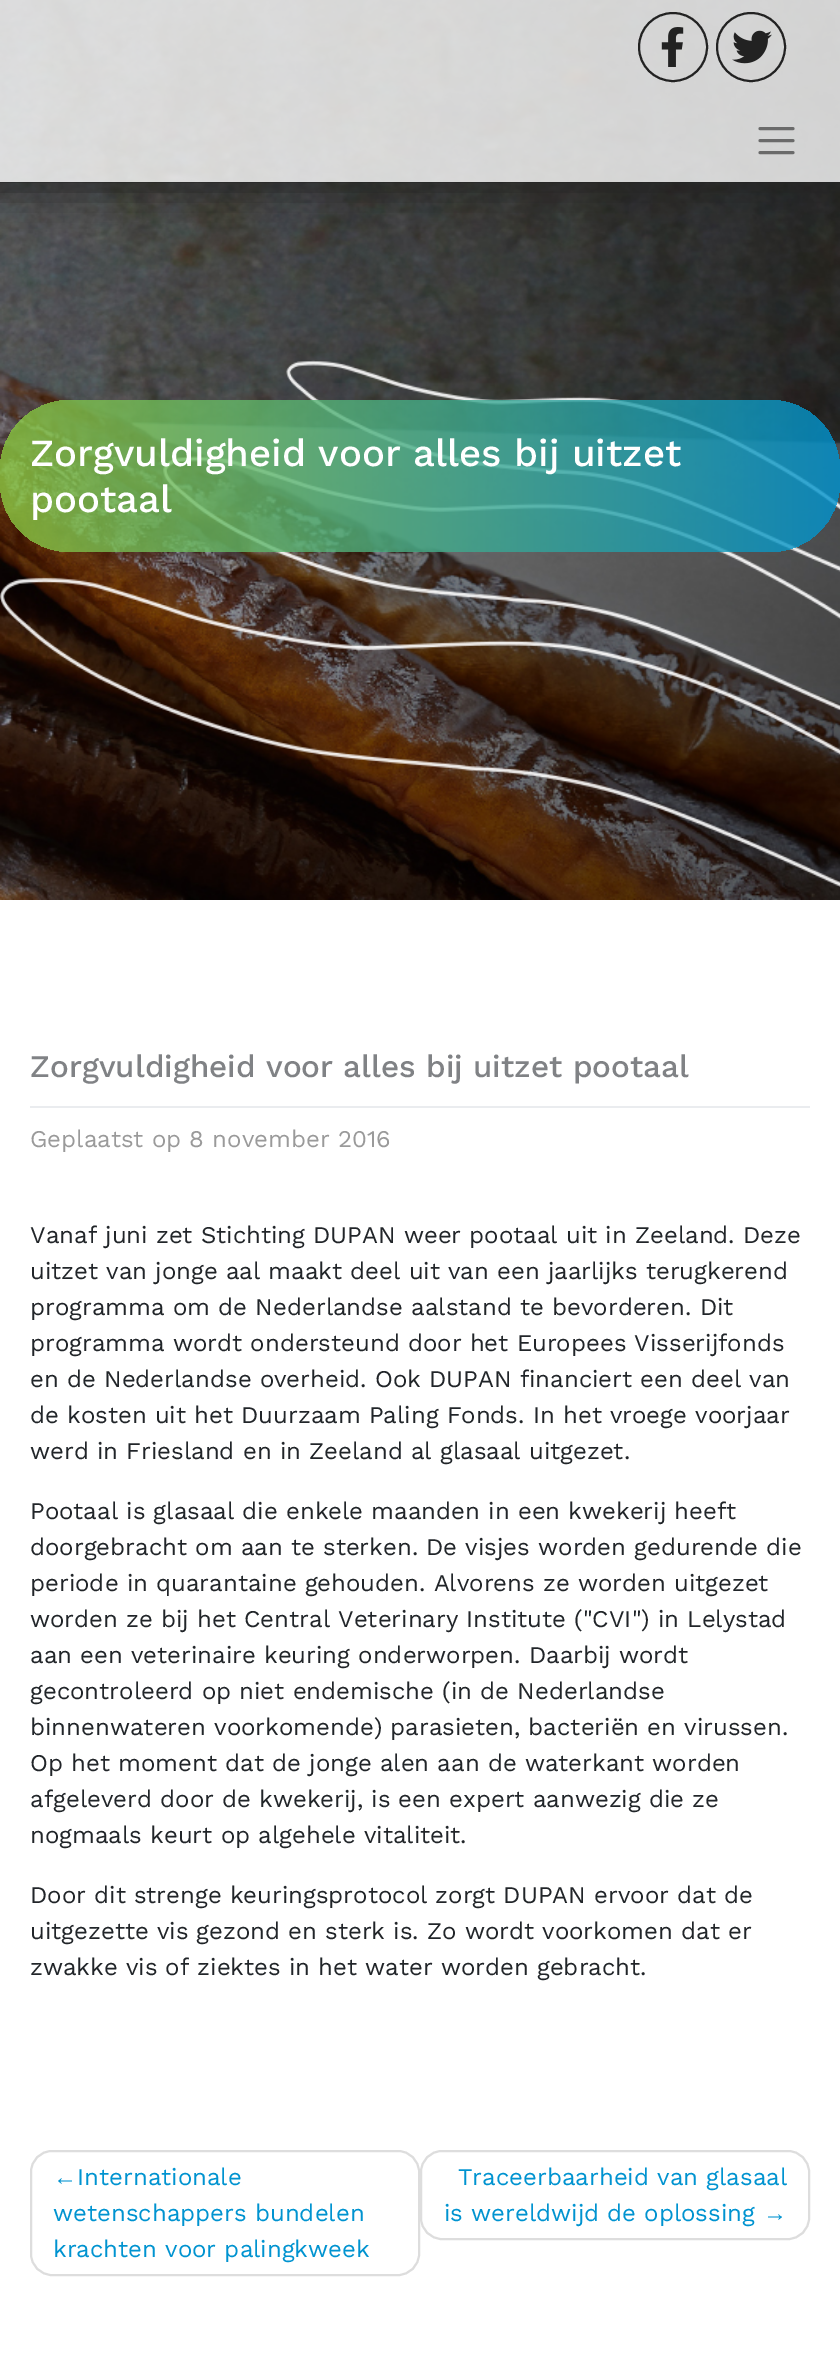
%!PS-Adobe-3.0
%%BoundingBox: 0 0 840 2374
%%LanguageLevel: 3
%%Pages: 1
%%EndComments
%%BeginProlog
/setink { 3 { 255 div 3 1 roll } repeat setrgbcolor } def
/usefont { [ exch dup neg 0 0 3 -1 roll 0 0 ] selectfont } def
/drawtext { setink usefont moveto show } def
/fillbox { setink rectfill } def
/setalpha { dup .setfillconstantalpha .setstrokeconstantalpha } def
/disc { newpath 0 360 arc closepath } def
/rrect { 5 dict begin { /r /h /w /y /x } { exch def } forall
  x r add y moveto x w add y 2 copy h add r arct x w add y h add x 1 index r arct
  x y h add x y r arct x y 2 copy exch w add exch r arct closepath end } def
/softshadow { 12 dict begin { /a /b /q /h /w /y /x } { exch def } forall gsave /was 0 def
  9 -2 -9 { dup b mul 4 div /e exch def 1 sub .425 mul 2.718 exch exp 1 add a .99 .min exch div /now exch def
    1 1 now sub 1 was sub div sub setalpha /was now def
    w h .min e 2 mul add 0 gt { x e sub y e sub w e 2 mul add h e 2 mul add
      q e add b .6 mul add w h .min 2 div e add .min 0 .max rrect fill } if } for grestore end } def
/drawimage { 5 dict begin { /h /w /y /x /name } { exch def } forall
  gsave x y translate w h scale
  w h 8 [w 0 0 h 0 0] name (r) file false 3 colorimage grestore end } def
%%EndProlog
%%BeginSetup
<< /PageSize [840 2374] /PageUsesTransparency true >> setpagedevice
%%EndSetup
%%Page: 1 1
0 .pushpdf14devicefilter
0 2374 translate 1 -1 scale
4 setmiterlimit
0 0 840 2374 255 255 255 fillbox
(assets/img1.rgb) 0 0 840 900 drawimage
gsave
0 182 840 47 rectclip
34 34 34 setink
-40 -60 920 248 0 20 1 softshadow
grestore
0.8 setalpha
0 0 840 182 255 255 255 fillbox
1 setalpha
34 34 34 setink
2 setlinewidth
673 47 34 disc stroke
(assets/img2.rgb) 661 27 23 40 drawimage
751 47 34 disc stroke
(assets/img3.rgb) 732 30 40 34 drawimage
106 106 106 setink
3 setlinewidth
1 setlinecap
760 128.5 moveto 793 128.5 lineto 760 140.5 moveto 793 140.5 lineto 760 152.5 moveto 793 152.5 lineto stroke
(assets/img4.rgb) 0 360 840 527 drawimage
0.8 setalpha
gsave 0 400 840 152 70 rrect clip newpath
<< /ShadingType 2 /ColorSpace /DeviceRGB /Coords [0 476 840 476] /Extend [true true] /Function << /FunctionType 3 /Domain [0 1] /Functions [<< /FunctionType 2 /Domain [0 1] /C0 [0.541 0.776 0.251] /C1 [0.541 0.776 0.251] /N 1 >> << /FunctionType 2 /Domain [0 1] /C0 [0.541 0.776 0.251] /C1 [0 0.576 0.816] /N 1 >>] /Bounds [0.01] /Encode [0 1 0 1] >> >> shfill grestore
1 setalpha
(Zorgvuldigheid voor alles bij uitzet) 30 466 /WorkSans-Medium 38.4 255 255 255 drawtext
(pootaal) 30 512 /WorkSans-Medium 38.4 255 255 255 drawtext
30 1106 780 2 234 236 239 fillbox
(Zorgvuldigheid voor alles bij uitzet pootaal) 30 1077 /WorkSans-Medium 31.4 128 130 133 drawtext
(Geplaatst op 8 november 2016) 30 1147 /WorkSans-Regular 24 154 154 154 drawtext
(Vanaf juni zet Stichting DUPAN weer pootaal uit in Zeeland. Deze) 30 1243 /WorkSans-Regular 24 33 37 41 drawtext
(uitzet van jonge aal maakt deel uit van een jaarlijks terugkerend) 30 1279 /WorkSans-Regular 24 33 37 41 drawtext
(programma om de Nederlandse aalstand te bevorderen. Dit) 30 1315 /WorkSans-Regular 24 33 37 41 drawtext
(programma wordt ondersteund door het Europees Visserijfonds) 30 1351 /WorkSans-Regular 24 33 37 41 drawtext
(en de Nederlandse overheid. Ook DUPAN financiert een deel van) 30 1387 /WorkSans-Regular 24 33 37 41 drawtext
(de kosten uit het Duurzaam Paling Fonds. In het vroege voorjaar) 30 1423 /WorkSans-Regular 24 33 37 41 drawtext
(werd in Friesland en in Zeeland al glasaal uitgezet.) 30 1459 /WorkSans-Regular 24 33 37 41 drawtext
(Pootaal is glasaal die enkele maanden in een kwekerij heeft) 30 1519 /WorkSans-Regular 24 33 37 41 drawtext
(doorgebracht om aan te sterken. De visjes worden gedurende die) 30 1555 /WorkSans-Regular 24 33 37 41 drawtext
(periode in quarantaine gehouden. Alvorens ze worden uitgezet) 30 1591 /WorkSans-Regular 24 33 37 41 drawtext
(worden ze bij het Central Veterinary Institute \("CVI"\) in Lelystad) 30 1627 /WorkSans-Regular 24 33 37 41 drawtext
(aan een veterinaire keuring onderworpen. Daarbij wordt) 30 1663 /WorkSans-Regular 24 33 37 41 drawtext
(gecontroleerd op niet endemische \(in de Nederlandse) 30 1699 /WorkSans-Regular 24 33 37 41 drawtext
(binnenwateren voorkomende\) parasieten, bacteriën en virussen.) 30 1735 /WorkSans-Regular 24 33 37 41 drawtext
(Op het moment dat de jonge alen aan de waterkant worden) 30 1771 /WorkSans-Regular 24 33 37 41 drawtext
(afgeleverd door de kwekerij, is een expert aanwezig die ze) 30 1807 /WorkSans-Regular 24 33 37 41 drawtext
(nogmaals keurt op algehele vitaliteit.) 30 1843 /WorkSans-Regular 24 33 37 41 drawtext
(Door dit strenge keuringsprotocol zorgt DUPAN ervoor dat de) 30 1903 /WorkSans-Regular 24 33 37 41 drawtext
(uitgezette vis gezond en sterk is. Zo wordt voorkomen dat er) 30 1939 /WorkSans-Regular 24 33 37 41 drawtext
(zwakke vis of ziektes in het water worden gebracht.) 30 1975 /WorkSans-Regular 24 33 37 41 drawtext
221 221 221 setink
2 setlinewidth
0 setlinecap
31 2151 388 124 21 rrect stroke
(←) 53 2185 /LiberationSans-Regular 24 0 147 208 drawtext
(Internationale) 77 2185 /WorkSans-Regular 24 0 147 208 drawtext
(wetenschappers bundelen) 53 2221 /WorkSans-Regular 24 0 147 208 drawtext
(krachten voor palingkweek) 53 2257 /WorkSans-Regular 24 0 147 208 drawtext
221 221 221 setink
421 2151 388 88 21 rrect stroke
(Traceerbaarheid van glasaal) 458 2185 /WorkSans-Regular 24 0 147 208 drawtext
(is wereldwijd de oplossing) 444 2221 /WorkSans-Regular 24 0 147 208 drawtext
(→) 763 2221 /LiberationSans-Regular 24 0 147 208 drawtext
.poppdf14devicefilter showpage
%%EOF
